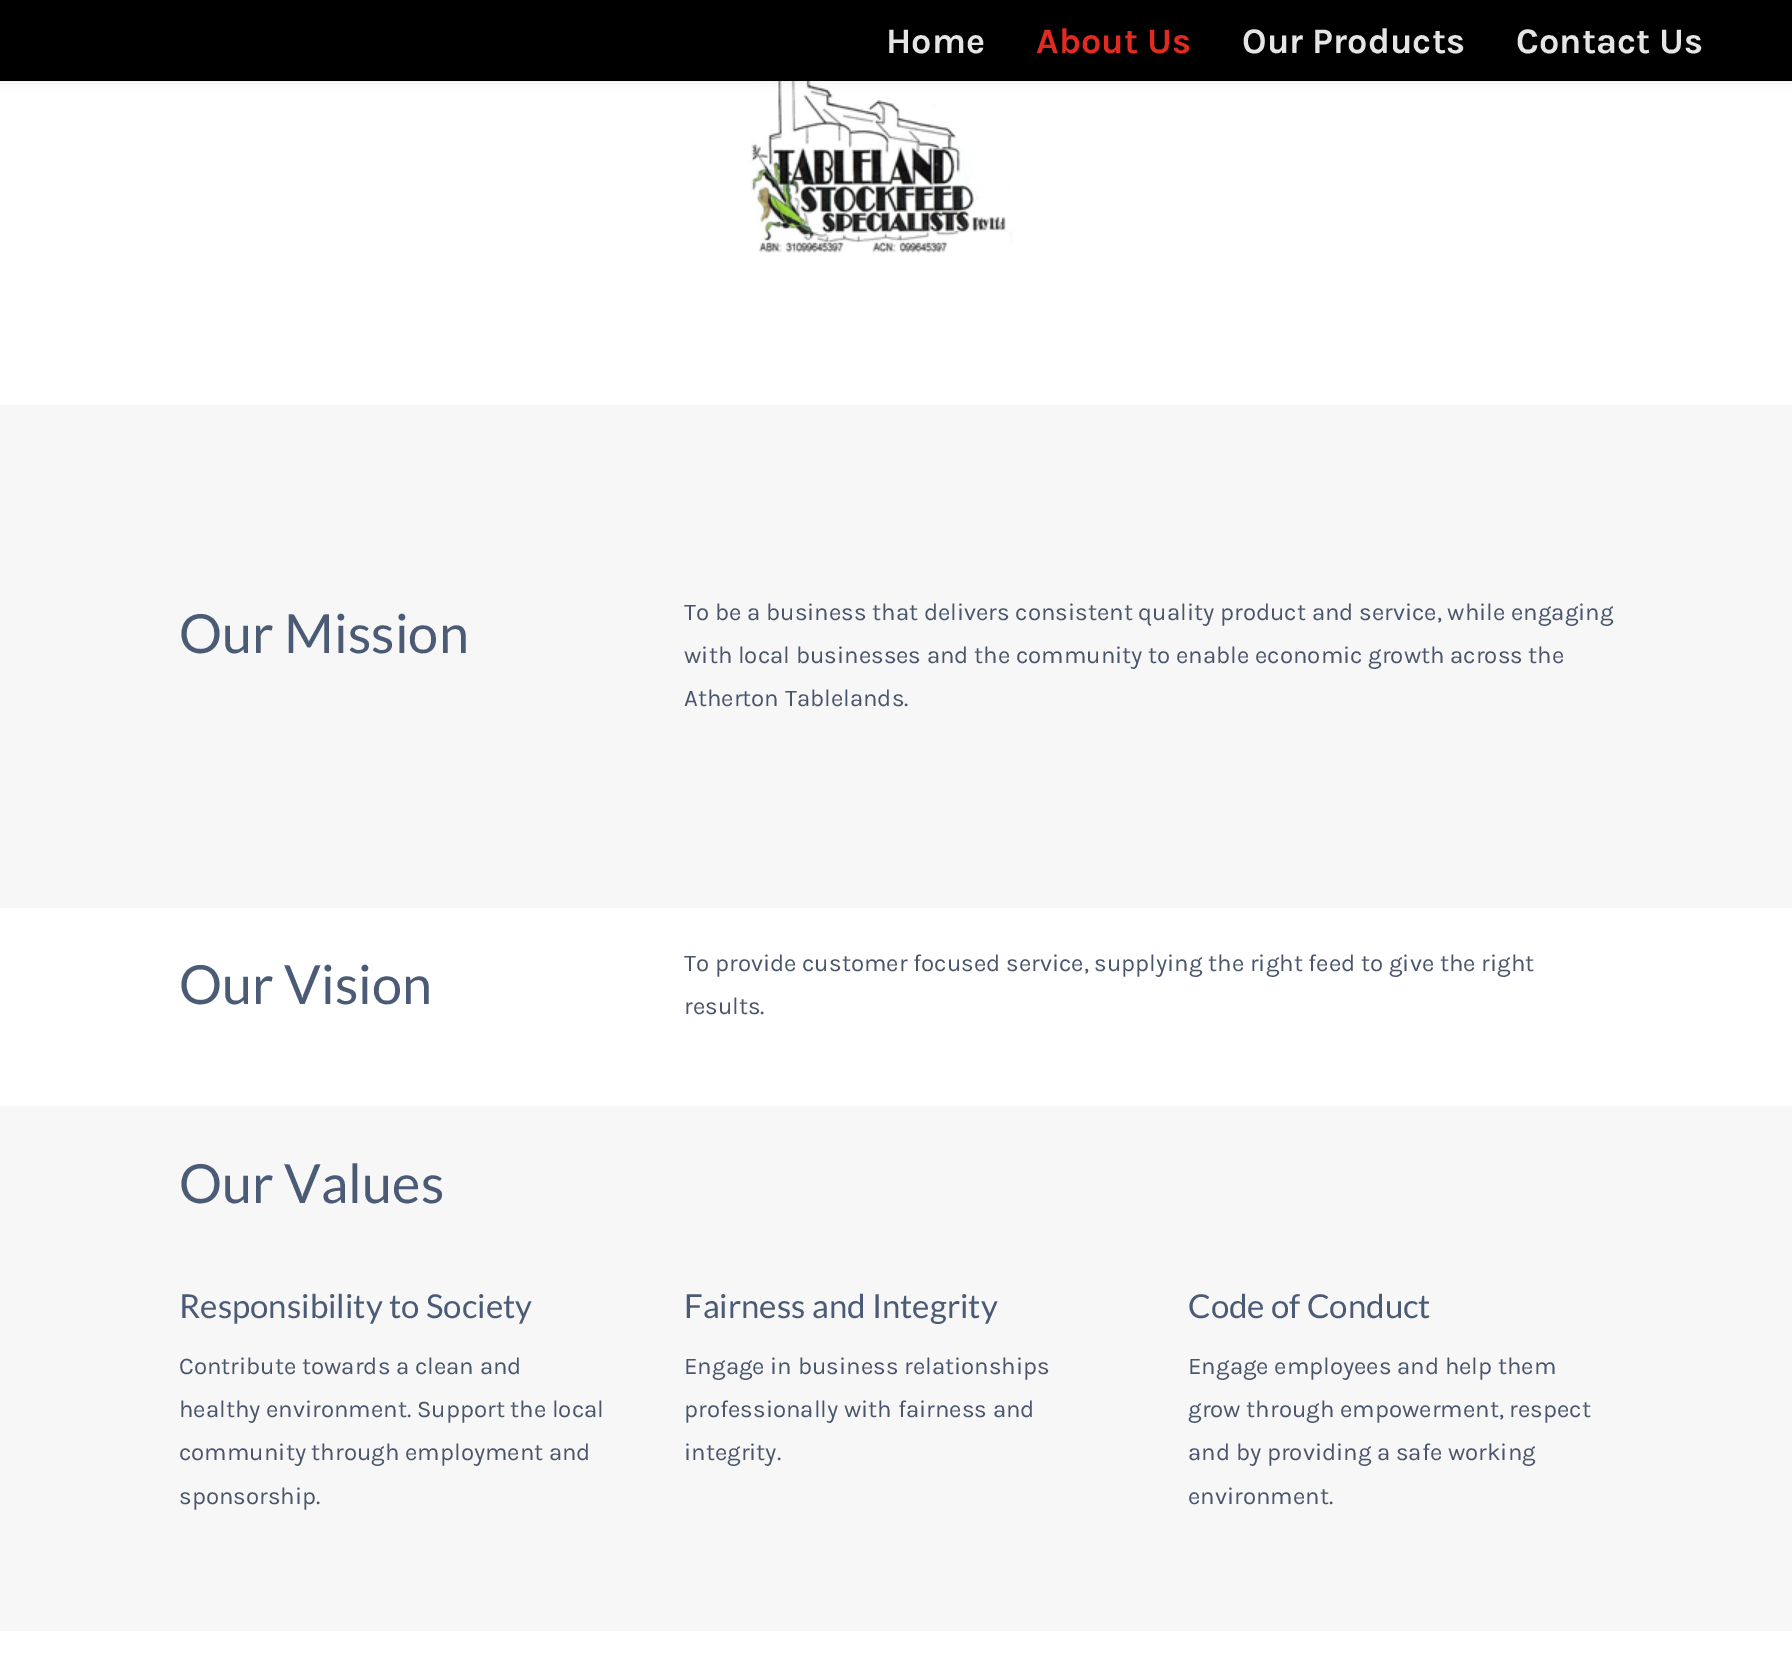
%!PS-Adobe-3.0
%%BoundingBox: 0 0 1792 1677
%%LanguageLevel: 3
%%Pages: 1
%%EndComments
%%BeginProlog
/setink { 3 { 255 div 3 1 roll } repeat setrgbcolor } def
/usefont { [ exch dup neg 0 0 3 -1 roll 0 0 ] selectfont } def
/drawtext { setink usefont moveto show } def
/fillbox { setink rectfill } def
/setalpha { dup .setfillconstantalpha .setstrokeconstantalpha } def
/rrect { 5 dict begin { /r /h /w /y /x } { exch def } forall
  x r add y moveto x w add y 2 copy h add r arct x w add y h add x 1 index r arct
  x y h add x y r arct x y 2 copy exch w add exch r arct closepath end } def
/softshadow { 12 dict begin { /a /b /q /h /w /y /x } { exch def } forall gsave /was 0 def
  9 -2 -9 { dup b mul 4 div /e exch def 1 sub .425 mul 2.718 exch exp 1 add a .99 .min exch div /now exch def
    1 1 now sub 1 was sub div sub setalpha /was now def
    w h .min e 2 mul add 0 gt { x e sub y e sub w e 2 mul add h e 2 mul add
      q e add b .6 mul add w h .min 2 div e add .min 0 .max rrect fill } if } for grestore end } def
/drawimage { 5 dict begin { /h /w /y /x /name } { exch def } forall
  gsave x y translate w h scale
  w h 8 [w 0 0 h 0 0] name (r) file false 3 colorimage grestore end } def
%%EndProlog
%%BeginSetup
<< /PageSize [1792 1677] /PageUsesTransparency true >> setpagedevice
%%EndSetup
%%Page: 1 1
0 .pushpdf14devicefilter
0 1677 translate 1 -1 scale
4 setmiterlimit
0 0 1792 1677 255 255 255 fillbox
(assets/img1.rgb) 749 81 264 172 drawimage
0 0 0 setink
0 0 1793 81 0 5 0.1 softshadow
0 0 1792 81 0 0 0 fillbox
(Home) 886 53 /Karla-Bold 36 229 229 229 drawtext
(About Us) 1036 53 /Karla-Bold 36 224 43 32 drawtext
(Our Products) 1242 53 /Karla-Bold 36 229 229 229 drawtext
(Contact Us) 1516 53 /Karla-Bold 36 229 229 229 drawtext
0 405 1792 503 247 247 247 fillbox
(Our Mission) 179 653 /Lato-Regular 54 76 91 117 drawtext
(To be a business that delivers consistent quality product and service, while engaging) 684 620 /Karla-Regular 24 73 85 107 drawtext
(with local businesses and the community to enable economic growth across the) 684 663 /Karla-Regular 24 73 85 107 drawtext
(Atherton Tablelands.) 684 706 /Karla-Regular 24 73 85 107 drawtext
(Our Vision) 179 1004 /Lato-Regular 54 76 91 117 drawtext
(To provide customer focused service, supplying the right feed to give the right) 684 971 /Karla-Regular 24 73 85 107 drawtext
(results.) 684 1014 /Karla-Regular 24 73 85 107 drawtext
0 1106 1792 525 247 247 247 fillbox
(Our Values) 179 1203 /Lato-Regular 54 76 91 117 drawtext
(Responsibility to Society) 179 1318 /Lato-Regular 33 76 91 117 drawtext
(Contribute towards a clean and) 179 1374 /Karla-Regular 24 73 85 107 drawtext
(healthy environment. Support the local) 179 1417 /Karla-Regular 24 73 85 107 drawtext
(community through employment and) 179 1460 /Karla-Regular 24 73 85 107 drawtext
(sponsorship.) 179 1504 /Karla-Regular 24 73 85 107 drawtext
(Fairness and Integrity) 684 1318 /Lato-Regular 33 76 91 117 drawtext
(Engage in business relationships) 684 1374 /Karla-Regular 24 73 85 107 drawtext
(professionally with fairness and) 684 1417 /Karla-Regular 24 73 85 107 drawtext
(integrity.) 684 1460 /Karla-Regular 24 73 85 107 drawtext
(Code of Conduct) 1188 1318 /Lato-Regular 33 76 91 117 drawtext
(Engage employees and help them) 1188 1374 /Karla-Regular 24 73 85 107 drawtext
(grow through empowerment, respect) 1188 1417 /Karla-Regular 24 73 85 107 drawtext
(and by providing a safe working) 1188 1460 /Karla-Regular 24 73 85 107 drawtext
(environment.) 1188 1504 /Karla-Regular 24 73 85 107 drawtext
.poppdf14devicefilter showpage
%%EOF
